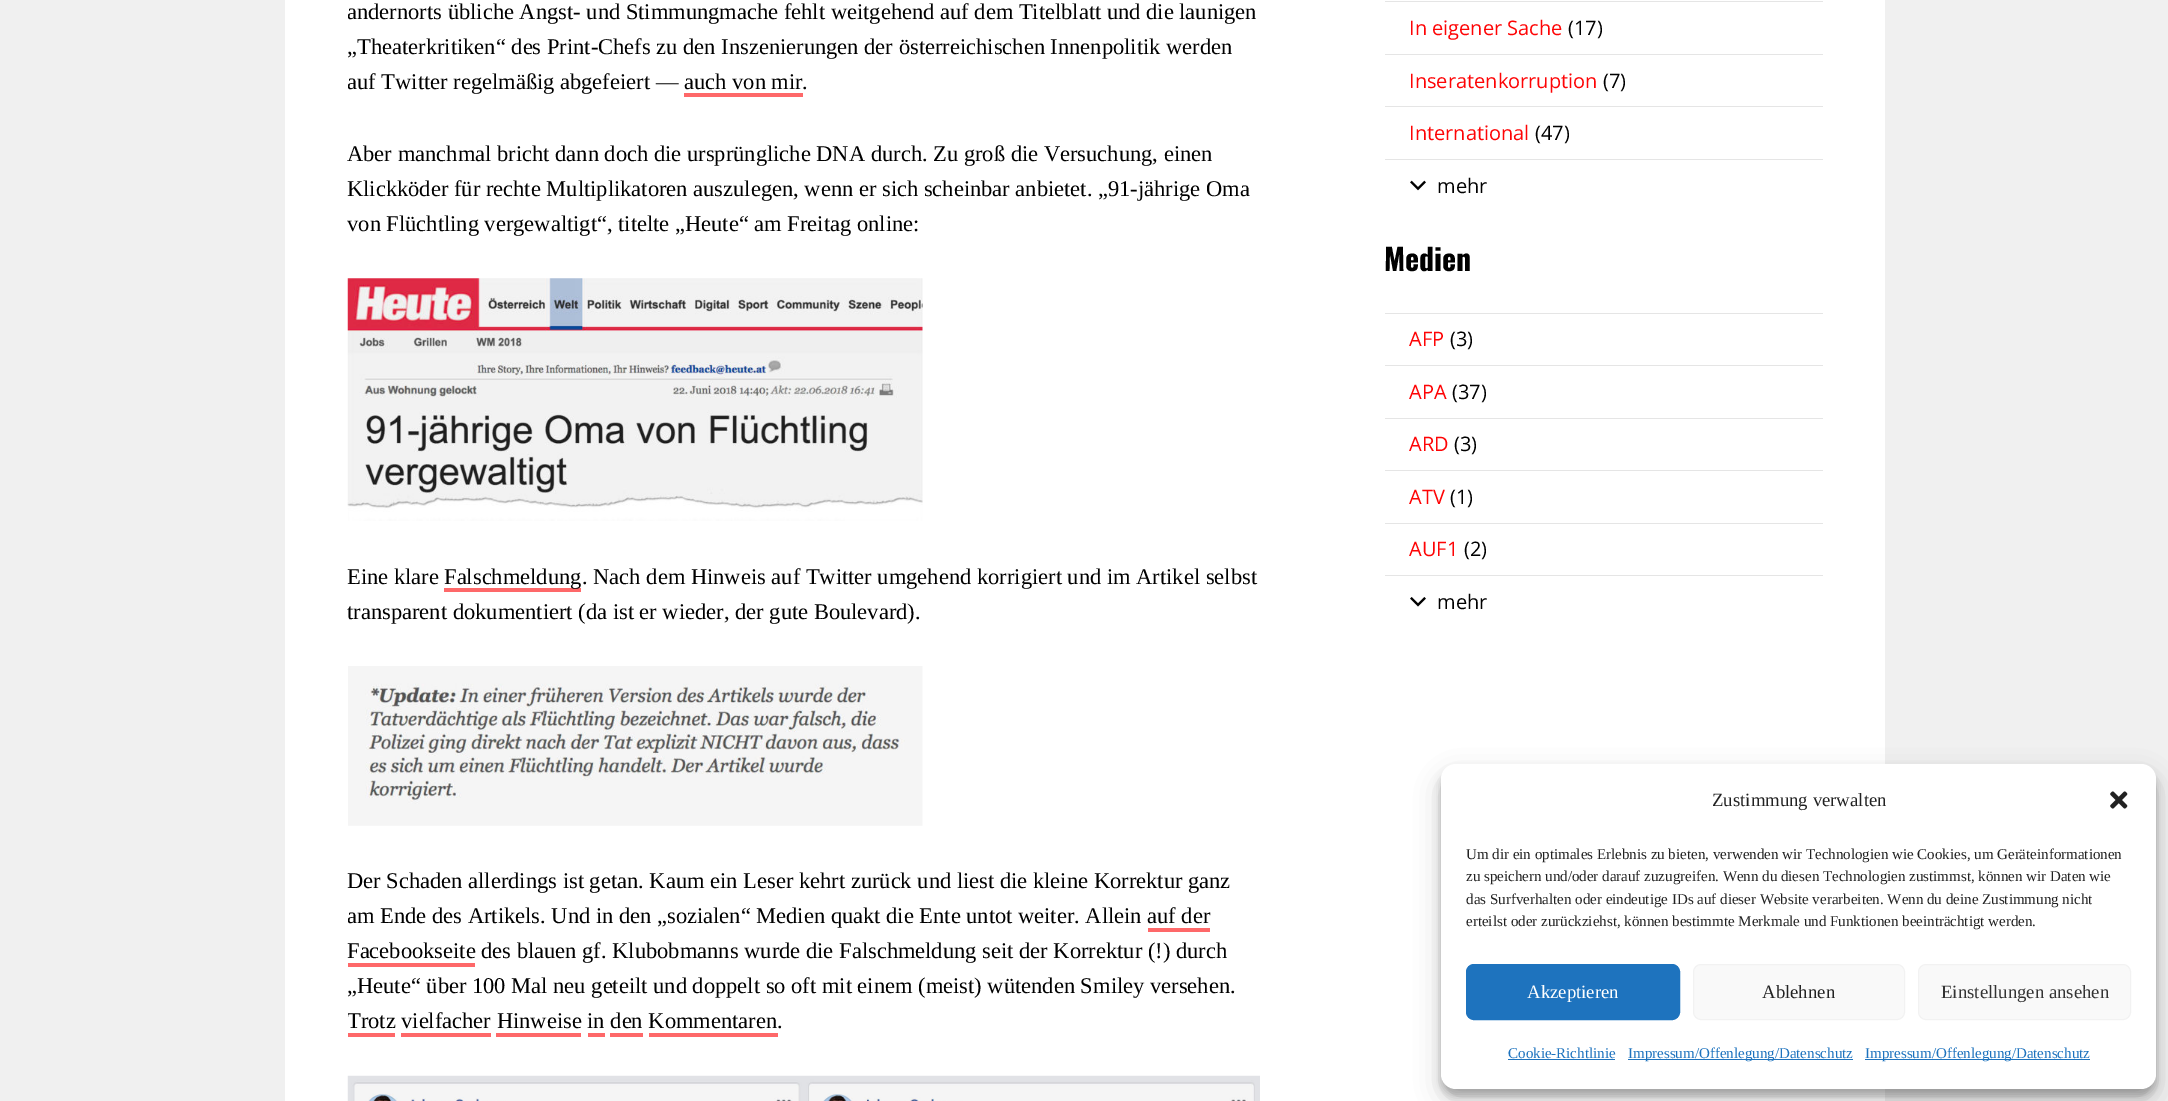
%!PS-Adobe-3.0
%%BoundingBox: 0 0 2168 1101
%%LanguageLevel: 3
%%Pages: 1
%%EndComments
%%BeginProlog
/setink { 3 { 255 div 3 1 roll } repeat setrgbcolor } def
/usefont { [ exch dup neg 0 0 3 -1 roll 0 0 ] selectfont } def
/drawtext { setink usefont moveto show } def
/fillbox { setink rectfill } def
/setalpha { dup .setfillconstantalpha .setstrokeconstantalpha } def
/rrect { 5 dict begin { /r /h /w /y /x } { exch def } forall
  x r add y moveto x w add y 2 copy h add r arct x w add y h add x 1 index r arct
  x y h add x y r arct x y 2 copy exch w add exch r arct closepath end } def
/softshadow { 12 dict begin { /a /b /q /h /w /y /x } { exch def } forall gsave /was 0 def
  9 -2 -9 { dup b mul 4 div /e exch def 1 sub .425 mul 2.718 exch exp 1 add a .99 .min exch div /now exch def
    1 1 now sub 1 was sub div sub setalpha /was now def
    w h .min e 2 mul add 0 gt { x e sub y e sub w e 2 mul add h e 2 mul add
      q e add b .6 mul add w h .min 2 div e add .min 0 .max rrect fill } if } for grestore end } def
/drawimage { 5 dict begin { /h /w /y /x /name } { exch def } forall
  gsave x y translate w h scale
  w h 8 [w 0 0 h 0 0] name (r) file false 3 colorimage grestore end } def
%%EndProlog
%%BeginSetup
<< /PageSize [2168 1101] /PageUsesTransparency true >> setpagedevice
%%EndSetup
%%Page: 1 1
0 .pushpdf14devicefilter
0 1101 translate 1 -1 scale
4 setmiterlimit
0 0 2168 1101 240 240 240 fillbox
285 0 1600 1101 255 255 255 fillbox
gsave
348 0 1037 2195 rectclip
(andernorts übliche Angst- und Stimmungmache fehlt weitgehend auf dem Titelblatt und die launigen) 347 19 /LiberationSerif-Regular 22.5 0 0 0 drawtext
grestore
(„Theaterkritiken“ des Print-Chefs zu den Inszenierungen der österreichischen Innenpolitik werden) 347 54 /LiberationSerif-Regular 22.5 0 0 0 drawtext
gsave
348 0 1037 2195 rectclip
(auf Twitter regelmäßig abgefeiert —) 347 89 /LiberationSerif-Regular 22.5 0 0 0 drawtext
grestore
(auch von mir) 684 89 /LiberationSerif-Regular 22.5 0 0 0 drawtext
684 93 119 4 254 104 105 fillbox
(.) 802 89 /LiberationSerif-Regular 22.5 0 0 0 drawtext
(Aber manchmal bricht dann doch die ursprüngliche DNA durch. Zu groß die Versuchung, einen) 347 161 /LiberationSerif-Regular 22.5 0 0 0 drawtext
(Klickköder für rechte Multiplikatoren auszulegen, wenn er sich scheinbar anbietet. „91-jährige Oma) 347 196 /LiberationSerif-Regular 22.5 0 0 0 drawtext
(von Flüchtling vergewaltigt“, titelte „Heute“ am Freitag online:) 347 231 /LiberationSerif-Regular 22.5 0 0 0 drawtext
(assets/img1.rgb) 347 278 576 243 drawimage
(Eine klare) 347 584 /LiberationSerif-Regular 22.5 0 0 0 drawtext
444 588 137 4 254 104 105 fillbox
(Falschmeldung) 444 584 /LiberationSerif-Regular 22.5 0 0 0 drawtext
(. Nach dem Hinweis auf Twitter umgehend korrigiert und im Artikel selbst) 582 584 /LiberationSerif-Regular 22.5 0 0 0 drawtext
(transparent dokumentiert \(da ist er wieder, der gute Boulevard\).) 347 619 /LiberationSerif-Regular 22.5 0 0 0 drawtext
(assets/img2.rgb) 348 666 575 160 drawimage
(Der Schaden allerdings ist getan. Kaum ein Leser kehrt zurück und liest die kleine Korrektur ganz) 347 888 /LiberationSerif-Regular 22.5 0 0 0 drawtext
gsave
348 0 1037 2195 rectclip
(am Ende des Artikels. Und in den „sozialen“ Medien quakt die Ente untot weiter. Allein) 347 923 /LiberationSerif-Regular 22.5 0 0 0 drawtext
grestore
(auf der) 1147 923 /LiberationSerif-Regular 22.5 0 0 0 drawtext
1148 928 62 4 254 104 105 fillbox
(Facebookseite) 347 958 /LiberationSerif-Regular 22.5 0 0 0 drawtext
348 963 127 4 254 104 105 fillbox
(des blauen gf. Klubobmanns wurde die Falschmeldung seit der Korrektur \(!\) durch) 481 958 /LiberationSerif-Regular 22.5 0 0 0 drawtext
(„Heute“ über 100 Mal neu geteilt und doppelt so oft mit einem \(meist\) wütenden Smiley versehen.) 347 993 /LiberationSerif-Regular 22.5 0 0 0 drawtext
gsave
348 0 1037 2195 rectclip
(Trotz) 347 1028 /LiberationSerif-Regular 22.5 0 0 0 drawtext
grestore
348 1033 47 4 254 104 105 fillbox
(vielfacher Hinweise in den Kommentaren) 401 1028 /LiberationSerif-Regular 22.5 0 0 0 drawtext
401 1033 90 4 254 104 105 fillbox
(.) 777 1028 /LiberationSerif-Regular 22.5 0 0 0 drawtext
496 1033 85 4 254 104 105 fillbox
588 1033 17 4 254 104 105 fillbox
610 1033 33 4 254 104 105 fillbox
649 1033 129 4 254 104 105 fillbox
(assets/img3.rgb) 347 1075 913 26 drawimage
1385 1 438 1 229 229 229 fillbox
(In eigener Sache) 1409 35 /OpenSans-Regular 20 254 4 5 drawtext
(\(17\)) 1568 35 /OpenSans-Regular 20 0 0 0 drawtext
1385 54 438 1 229 229 229 fillbox
(Inseratenkorruption) 1409 88 /OpenSans-Regular 20 254 4 5 drawtext
(\(7\)) 1603 88 /OpenSans-Regular 20 0 0 0 drawtext
1385 106 438 1 229 229 229 fillbox
1385 159 438 1 229 229 229 fillbox
(International) 1409 140 /OpenSans-Regular 20 254 4 5 drawtext
(\(47\)) 1535 140 /OpenSans-Regular 20 0 0 0 drawtext
(assets/img4.rgb) 1410 180 16 11 drawimage
(mehr) 1437 193 /OpenSans-Regular 20 0 0 0 drawtext
(Medien) 1384 271 /Oswald-Bold 30 0 0 0 drawtext
1385 313 438 1 229 229 229 fillbox
(AFP) 1409 346 /OpenSans-Regular 20 254 4 5 drawtext
(\(3\)) 1450 346 /OpenSans-Regular 20 0 0 0 drawtext
1385 365 438 1 229 229 229 fillbox
(APA) 1409 399 /OpenSans-Regular 20 254 4 5 drawtext
(\(37\)) 1452 399 /OpenSans-Regular 20 0 0 0 drawtext
1385 418 438 1 229 229 229 fillbox
(ARD) 1409 451 /OpenSans-Regular 20 254 4 5 drawtext
(\(3\)) 1454 451 /OpenSans-Regular 20 0 0 0 drawtext
1385 470 438 1 229 229 229 fillbox
(ATV) 1409 504 /OpenSans-Regular 20 254 4 5 drawtext
(\(1\)) 1450 504 /OpenSans-Regular 20 0 0 0 drawtext
1385 523 438 1 229 229 229 fillbox
1385 575 438 1 229 229 229 fillbox
(AUF1) 1409 556 /OpenSans-Regular 20 254 4 5 drawtext
(\(2\)) 1464 556 /OpenSans-Regular 20 0 0 0 drawtext
(assets/img5.rgb) 1410 597 16 10 drawimage
(mehr) 1437 609 /OpenSans-Regular 20 0 0 0 drawtext
1441 771 715 325 15 4 0.23 softshadow
1441 776 715 325 15 12.5 0.19 softshadow
255 255 255 setink
1441 764 715 325 15 rrect fill
(Zustimmung verwalten) 1712 806 /LiberationSerif-Regular 18.75 34 34 34 drawtext
(assets/img6.rgb) 2110 791 18 18 drawimage
(Um dir ein optimales Erlebnis zu bieten, verwenden wir Technologien wie Cookies, um Geräteinformationen) 1466 859 /LiberationSerif-Regular 15 34 34 34 drawtext
(zu speichern und/oder darauf zuzugreifen. Wenn du diesen Technologien zustimmst, können wir Daten wie) 1466 881 /LiberationSerif-Regular 15 34 34 34 drawtext
(das Surfverhalten oder eindeutige IDs auf dieser Website verarbeiten. Wenn du deine Zustimmung nicht) 1466 904 /LiberationSerif-Regular 15 34 34 34 drawtext
(erteilst oder zurückziehst, können bestimmte Merkmale und Funktionen beeinträchtigt werden.) 1466 926 /LiberationSerif-Regular 15 34 34 34 drawtext
30 115 190 setink
1466.5 964.5 213 55 7.5 rrect gsave fill grestore
stroke
(Akzeptieren) 1527 998 /LiberationSerif-Regular 18.75 255 255 255 drawtext
249 249 249 setink
1693.5 964.5 211 55 7.5 rrect gsave fill grestore
242 242 242 setink
stroke
(Ablehnen) 1762 998 /LiberationSerif-Regular 18.75 34 34 34 drawtext
249 249 249 setink
1918.5 964.5 212 55 7.5 rrect gsave fill grestore
242 242 242 setink
stroke
(Einstellungen ansehen) 1941 998 /LiberationSerif-Regular 18.75 51 51 51 drawtext
(Cookie-Richtlinie) 1508 1058 /LiberationSerif-Regular 15 30 115 190 drawtext
1508 1059 107 1 30 115 190 fillbox
1628 1059 225 1 30 115 190 fillbox
(Impressum/Offenlegung/Datenschutz) 1628 1058 /LiberationSerif-Regular 15 30 115 190 drawtext
1865 1059 225 1 30 115 190 fillbox
(Impressum/Offenlegung/Datenschutz) 1865 1058 /LiberationSerif-Regular 15 30 115 190 drawtext
.poppdf14devicefilter showpage
%%EOF
